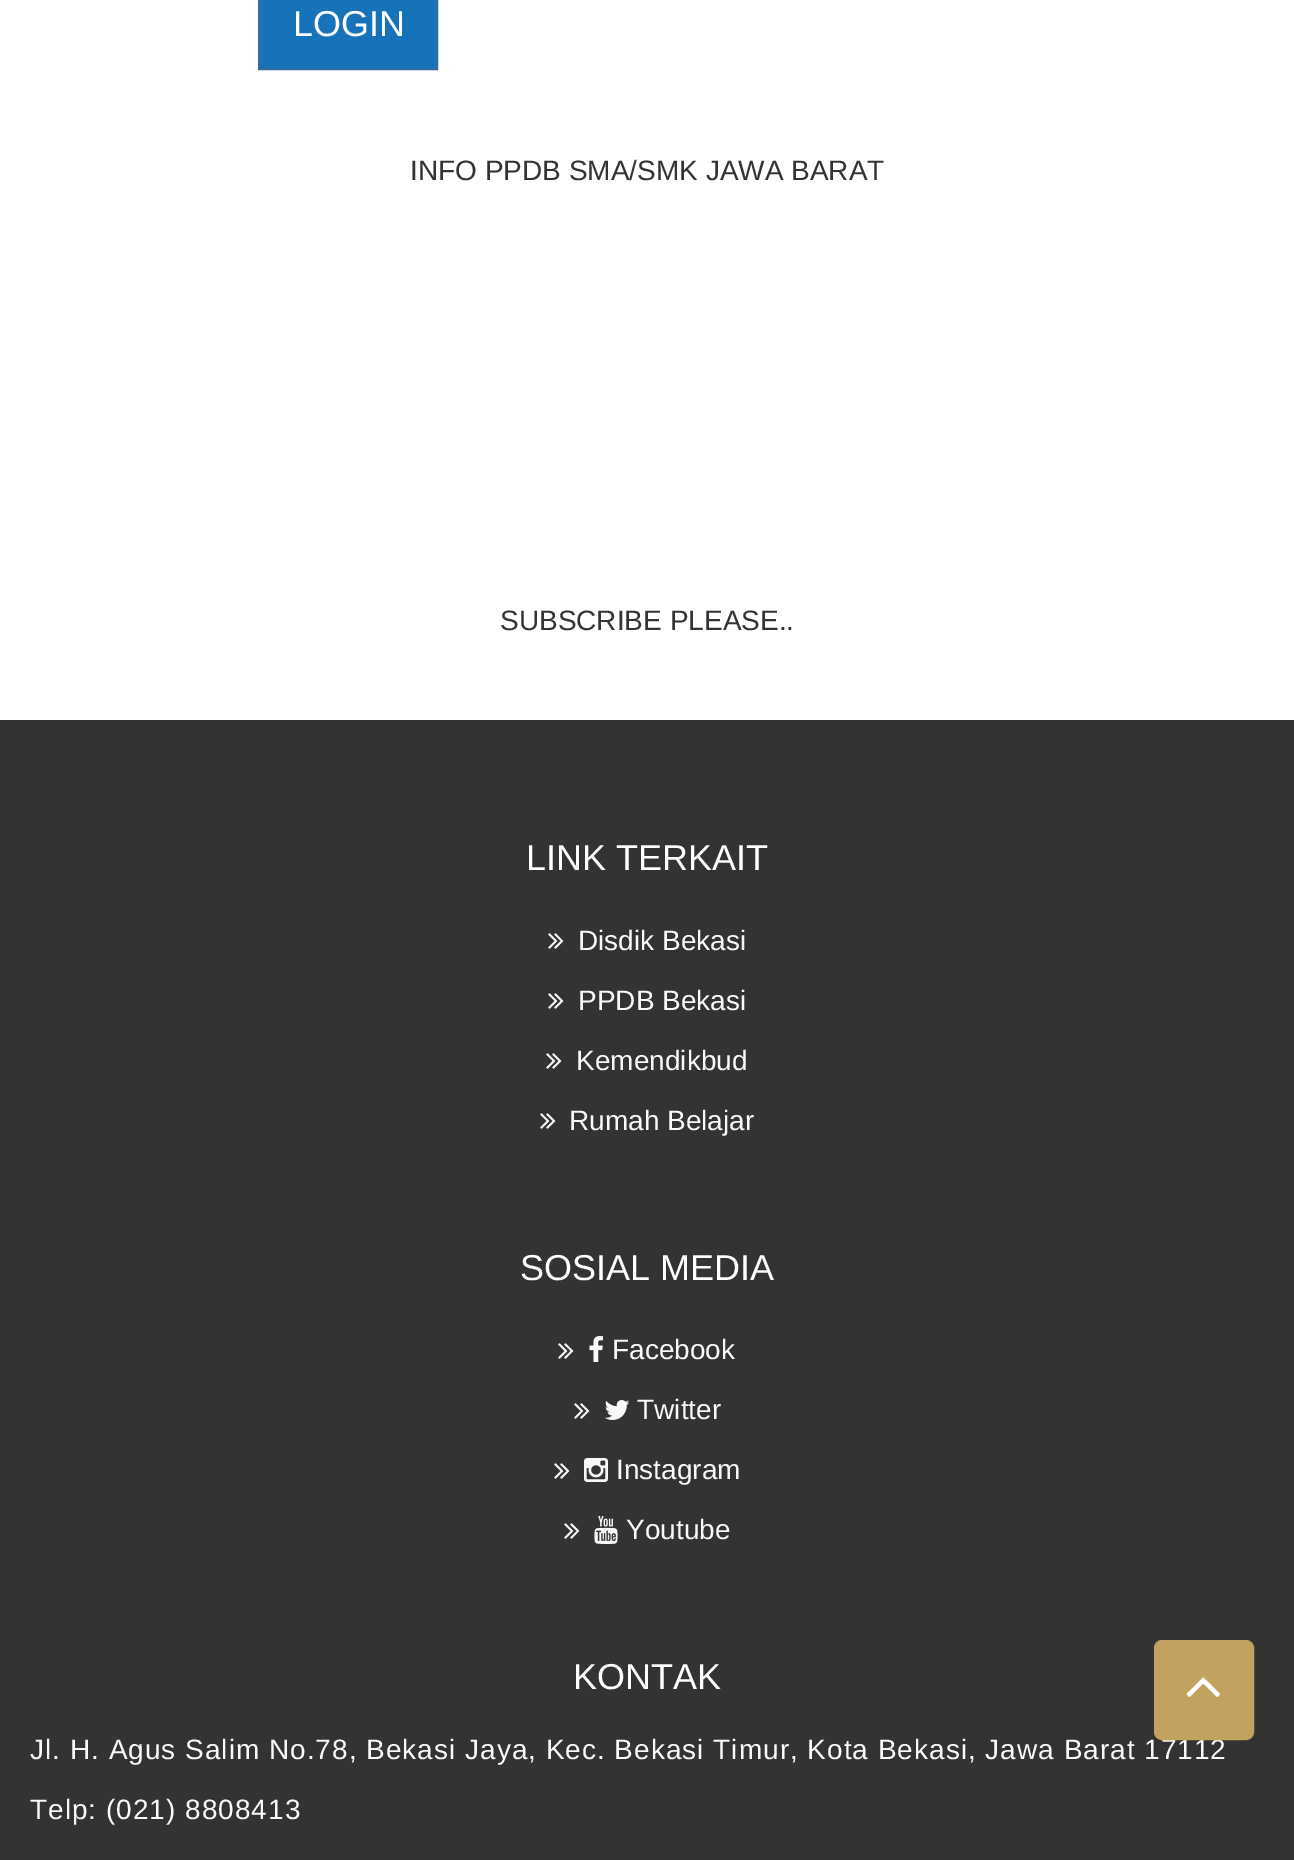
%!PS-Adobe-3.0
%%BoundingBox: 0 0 1294 1860
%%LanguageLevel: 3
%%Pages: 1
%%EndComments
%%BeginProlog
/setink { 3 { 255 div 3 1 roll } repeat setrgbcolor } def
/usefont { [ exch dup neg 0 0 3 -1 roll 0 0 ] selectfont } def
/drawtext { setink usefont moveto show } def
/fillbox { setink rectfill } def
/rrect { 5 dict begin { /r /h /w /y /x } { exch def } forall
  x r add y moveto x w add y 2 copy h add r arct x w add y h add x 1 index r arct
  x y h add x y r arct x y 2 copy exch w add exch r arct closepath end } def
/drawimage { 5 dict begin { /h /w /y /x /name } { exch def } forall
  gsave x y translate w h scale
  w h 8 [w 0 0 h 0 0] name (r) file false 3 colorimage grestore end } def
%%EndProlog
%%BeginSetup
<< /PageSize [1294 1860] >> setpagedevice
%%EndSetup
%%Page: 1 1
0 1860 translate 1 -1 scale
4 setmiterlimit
0 0 1294 1860 255 255 255 fillbox
22 114 185 setink
259 -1 moveto 437 -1 lineto 437 69 lineto 259 69 lineto closepath gsave fill grestore
46 109 164 setink
2 setlinewidth
stroke
(LOGIN) 293 36 /LiberationSans-Regular 36 255 255 255 drawtext
(INFO PPDB SMA/SMK JAWA BARAT) 410 180 /LiberationSans-Regular 28 51 51 51 drawtext
(SUBSCRIBE PLEASE..) 500 630 /LiberationSans-Regular 28 51 51 51 drawtext
0 720 1294 1140 51 51 51 fillbox
(LINK TERKAIT) 526 870 /LiberationSans-Regular 36 255 255 255 drawtext
(assets/img1.rgb) 548 933 16 16 drawimage
(Disdik Bekasi) 578 950 /LiberationSans-Regular 28 249 249 249 drawtext
(assets/img1.rgb) 548 993 16 16 drawimage
(PPDB Bekasi) 578 1010 /LiberationSans-Regular 28 249 249 249 drawtext
(assets/img1.rgb) 546 1053 16 16 drawimage
(Kemendikbud) 576 1070 /LiberationSans-Regular 28 249 249 249 drawtext
(assets/img1.rgb) 540 1113 16 16 drawimage
(Rumah Belajar) 569 1130 /LiberationSans-Regular 28 249 249 249 drawtext
(SOSIAL MEDIA) 520 1280 /LiberationSans-Regular 36 255 255 255 drawtext
(assets/img1.rgb) 558 1343 16 16 drawimage
(assets/img2.rgb) 589 1336 14 26 drawimage
(Facebook) 612 1359 /LiberationSans-Regular 28 249 249 249 drawtext
(assets/img1.rgb) 574 1403 16 16 drawimage
(assets/img3.rgb) 604 1400 26 20 drawimage
(Twitter) 637 1419 /LiberationSans-Regular 28 249 249 249 drawtext
(assets/img1.rgb) 554 1463 16 16 drawimage
(assets/img4.rgb) 584 1458 24 24 drawimage
(Instagram) 616 1479 /LiberationSans-Regular 28 249 249 249 drawtext
(assets/img1.rgb) 564 1523 16 16 drawimage
(assets/img5.rgb) 594 1516 24 28 drawimage
(Youtube) 626 1539 /LiberationSans-Regular 28 249 249 249 drawtext
(KONTAK) 573 1689 /LiberationSans-Regular 36 255 255 255 drawtext
/LiberationSans-Regular 28 usefont
249 249 249 setink
30 1759 moveto 1 0 (Jl. H. Agus Salim No.78, Bekasi Jaya, Kec. Bekasi Timur, Kota Bekasi, Jawa Barat 17112) ashow
30 1819 moveto 1 0 (Telp: \(021\) 8808413) ashow
193 163 95 setink
1156 1642 96 96 6 rrect gsave fill grestore
4 setlinewidth
stroke
(assets/img6.rgb) 1186 1677 34 20 drawimage
showpage
%%EOF
